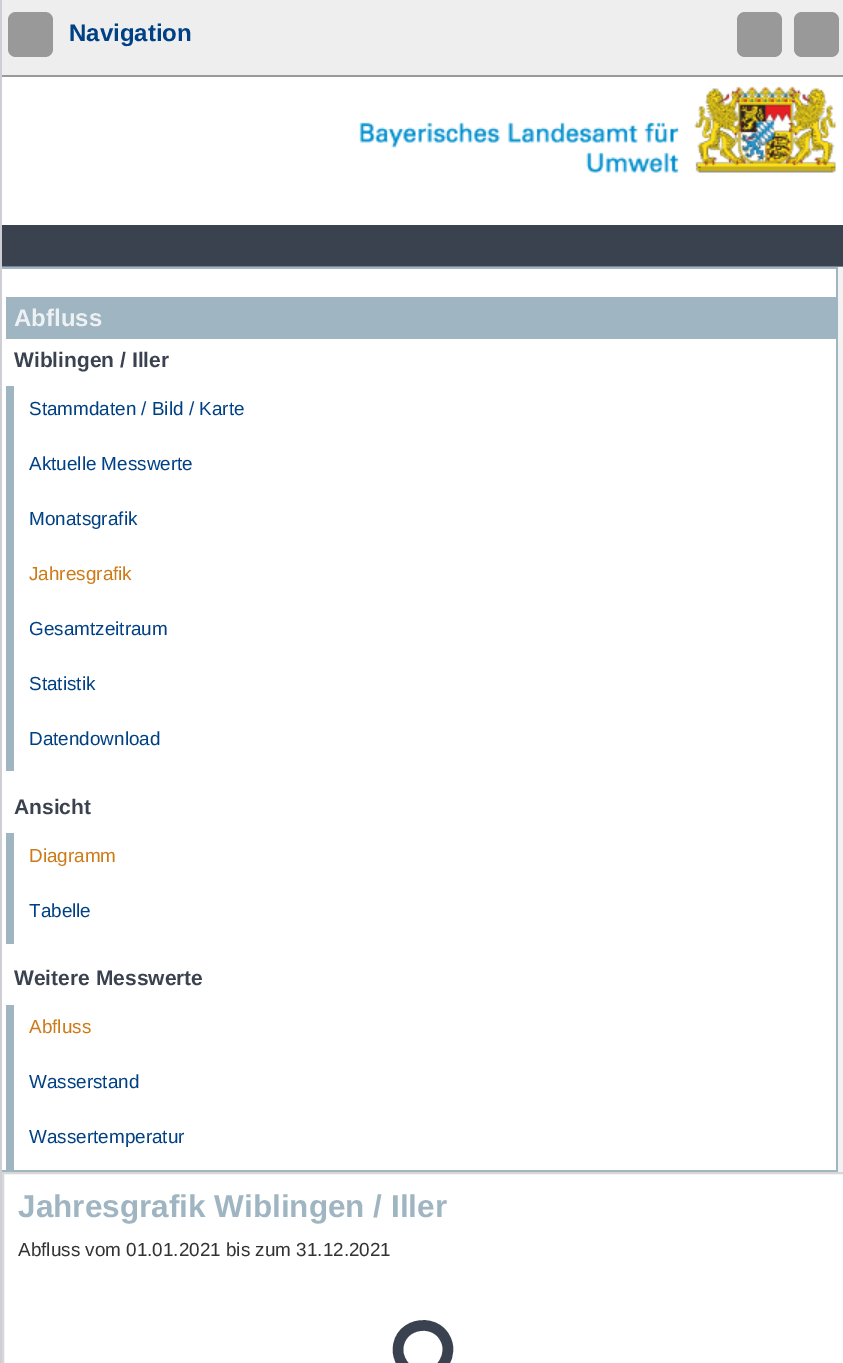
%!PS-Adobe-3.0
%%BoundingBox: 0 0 843 1363
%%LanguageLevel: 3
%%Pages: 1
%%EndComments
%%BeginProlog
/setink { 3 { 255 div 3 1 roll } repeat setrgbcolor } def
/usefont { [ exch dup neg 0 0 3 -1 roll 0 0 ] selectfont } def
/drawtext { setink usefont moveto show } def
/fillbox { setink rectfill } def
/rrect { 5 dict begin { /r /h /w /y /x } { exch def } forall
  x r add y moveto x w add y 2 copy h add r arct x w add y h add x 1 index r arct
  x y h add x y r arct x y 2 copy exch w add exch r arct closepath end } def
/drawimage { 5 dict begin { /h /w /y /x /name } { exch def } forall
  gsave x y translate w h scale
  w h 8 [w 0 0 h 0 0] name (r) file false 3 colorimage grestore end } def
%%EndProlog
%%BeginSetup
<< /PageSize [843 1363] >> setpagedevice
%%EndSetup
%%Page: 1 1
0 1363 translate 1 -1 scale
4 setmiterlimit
0 0 843 1363 255 255 255 fillbox
0 0 2 1363 206 207 212 fillbox
2 0 841 75 238 238 238 fillbox
2 75 841 2 153 153 153 fillbox
8 12 45 45 8 rrect fill
(Navigation) 69 41 /LiberationSans-Bold 24 0 65 133 drawtext
153 153 153 setink
737 12 45 45 8 rrect fill
794 12 45 45 8 rrect fill
(assets/img1.rgb) 359 86 477 87 drawimage
2 225 841 41 59 66 79 fillbox
2 266 841 1 122 130 145 fillbox
838 267 5 905 242 242 242 fillbox
2 267 835 2 159 181 193 fillbox
836 267 2 905 159 181 193 fillbox
2 1170 835 2 159 181 193 fillbox
6 297 830 42 159 181 193 fillbox
(Abfluss) 14 326 /LiberationSans-Bold 24 237 241 243 drawtext
(Wiblingen / Iller) 14 367 /LiberationSans-Bold 21 59 66 79 drawtext
6 386 8 385 159 181 193 fillbox
(Stammdaten / Bild / Karte) 29 415 /LiberationSans-Regular 18.9 0 65 133 drawtext
(Aktuelle Messwerte) 29 470 /LiberationSans-Regular 18.9 0 65 133 drawtext
(Monatsgrafik) 29 525 /LiberationSans-Regular 18.9 0 65 133 drawtext
(Jahresgrafik) 29 580 /LiberationSans-Regular 18.9 204 123 23 drawtext
(Gesamtzeitraum) 29 635 /LiberationSans-Regular 18.9 0 65 133 drawtext
(Statistik) 29 690 /LiberationSans-Regular 18.9 0 65 133 drawtext
(Datendownload) 29 745 /LiberationSans-Regular 18.9 0 65 133 drawtext
(Ansicht) 14 814 /LiberationSans-Bold 21 59 66 79 drawtext
6 833 8 111 159 181 193 fillbox
(Diagramm) 29 862 /LiberationSans-Regular 18.9 204 123 23 drawtext
(Tabelle) 29 917 /LiberationSans-Regular 18.9 0 65 133 drawtext
(Weitere Messwerte) 14 985 /LiberationSans-Bold 21 59 66 79 drawtext
6 1005 8 165 159 181 193 fillbox
(Abfluss) 29 1033 /LiberationSans-Regular 18.9 204 123 23 drawtext
(Wasserstand) 29 1088 /LiberationSans-Regular 18.9 0 65 133 drawtext
(Wassertemperatur) 29 1143 /LiberationSans-Regular 18.9 0 65 133 drawtext
215 215 215 setink
2 setlinewidth
3 1173 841 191 rectstroke
(Jahresgrafik Wiblingen / Iller) 18 1217 /LiberationSans-Bold 31.5 159 181 193 drawtext
(Abfluss vom 01.01.2021 bis zum 31.12.2021) 18 1256 /LiberationSans-Regular 18.9 51 51 51 drawtext
59 66 79 setink
10.5 setlinewidth
405.5 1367.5 moveto 401 1363 398 1356.5 398 1350 curveto 398 1320.5 441.5 1316 447.5 1345 curveto 449 1353 446.5 1361.5 440.5 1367.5 curveto stroke
showpage
%%EOF
